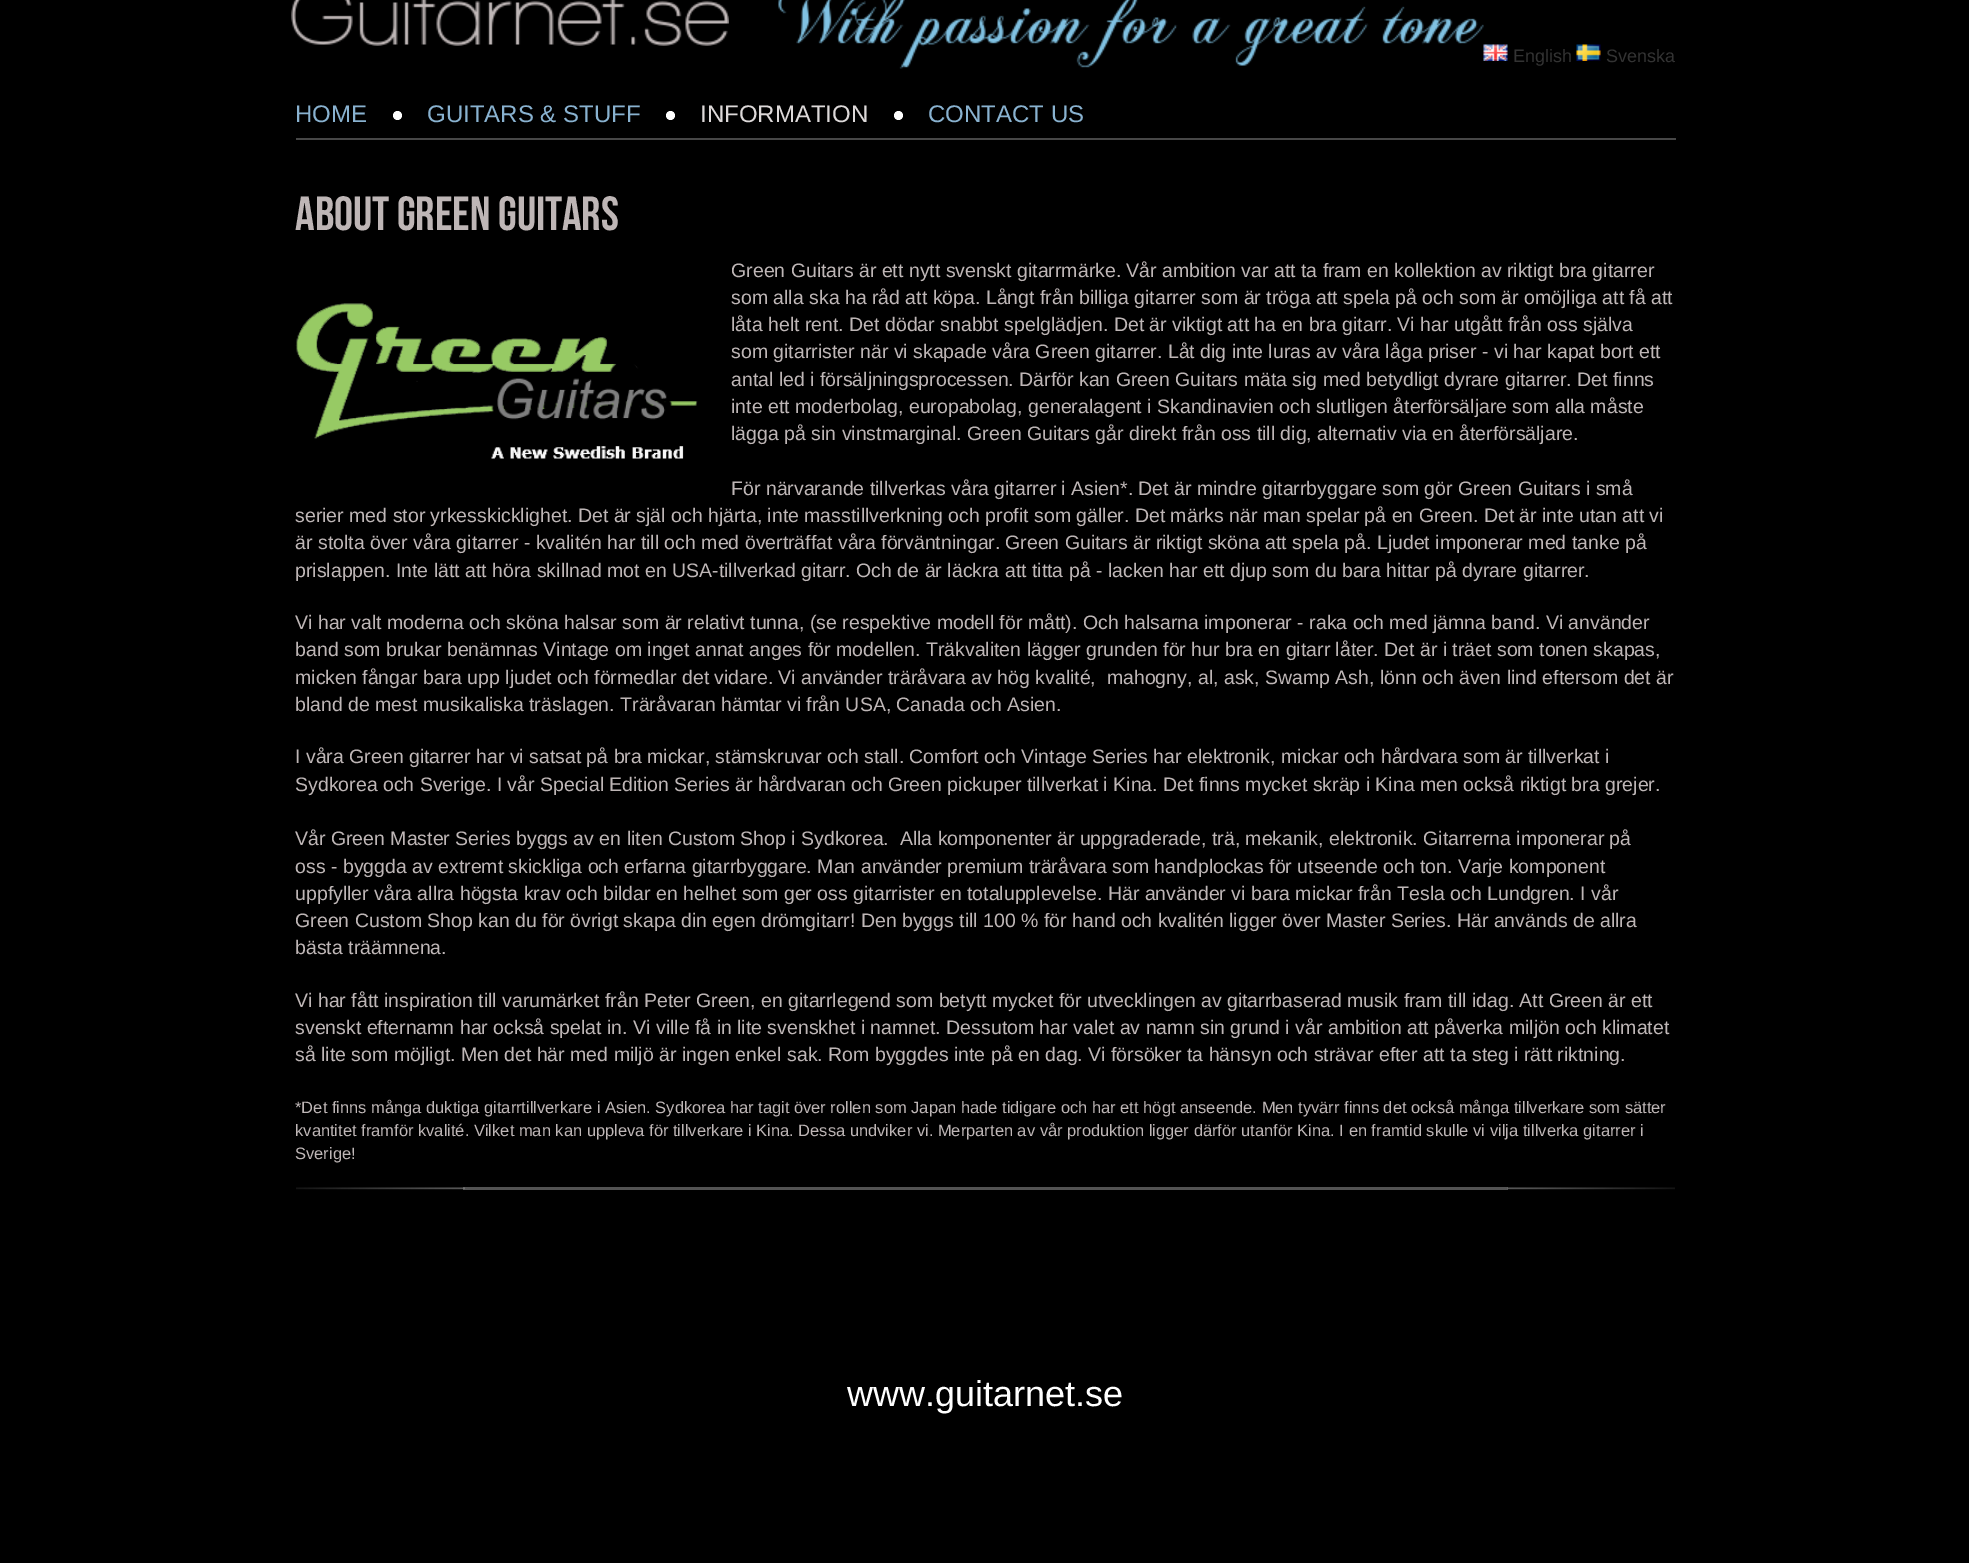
%!PS-Adobe-3.0
%%BoundingBox: 0 0 1969 1563
%%LanguageLevel: 3
%%Pages: 1
%%EndComments
%%BeginProlog
/setink { 3 { 255 div 3 1 roll } repeat setrgbcolor } def
/usefont { [ exch dup neg 0 0 3 -1 roll 0 0 ] selectfont } def
/drawtext { setink usefont moveto show } def
/fillbox { setink rectfill } def
/setalpha { dup .setfillconstantalpha .setstrokeconstantalpha } def
/disc { newpath 0 360 arc closepath } def
/drawimage { 5 dict begin { /h /w /y /x /name } { exch def } forall
  gsave x y translate w h scale
  w h 8 [w 0 0 h 0 0] name (r) file false 3 colorimage grestore end } def
%%EndProlog
%%BeginSetup
<< /PageSize [1969 1563] /PageUsesTransparency true >> setpagedevice
%%EndSetup
%%Page: 1 1
0 .pushpdf14devicefilter
0 1563 translate 1 -1 scale
4 setmiterlimit
0 0 1969 1563 0 0 0 fillbox
(assets/img1.rgb) 291 0 438 46 drawimage
(assets/img2.rgb) 778 0 706 69 drawimage
(assets/img3.rgb) 1483 44 25 17 drawimage
(English) 1513 62 /LiberationSans-Regular 18 51 51 51 drawtext
(assets/img4.rgb) 1576 44 25 17 drawimage
(Svenska) 1606 62 /LiberationSans-Regular 18 51 51 51 drawtext
296 138 1380 2 71 71 71 fillbox
(HOME) 295 122 /LiberationSans-Regular 24 137 178 208 drawtext
255 255 255 setink
397.5 115.5 4.5 disc fill
(GUITARS & STUFF) 427 122 /LiberationSans-Regular 24 137 178 208 drawtext
255 255 255 setink
670.5 115.5 4.5 disc fill
(INFORMATION) 700 122 /LiberationSans-Regular 24 221 217 217 drawtext
255 255 255 setink
898.5 115.5 4.5 disc fill
(CONTACT US) 928 122 /LiberationSans-Regular 24 137 178 208 drawtext
(About Green Guitars) 295 230 /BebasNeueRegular-Regular 48 190 182 182 drawtext
(Green Guitars är ett nytt svenskt gitarrmärke. Vår ambition var att ta fram en kollektion av riktigt bra gitarrer) 731 277 /LiberationSans-Regular 19.5 190 182 182 drawtext
(som alla ska ha råd att köpa. Långt från billiga gitarrer som är tröga att spela på och som är omöjliga att få att) 731 304 /LiberationSans-Regular 19.5 190 182 182 drawtext
(låta helt rent. Det dödar snabbt spelglädjen. Det är viktigt att ha en bra gitarr. Vi har utgått från oss själva) 731 331 /LiberationSans-Regular 19.5 190 182 182 drawtext
(som gitarrister när vi skapade våra Green gitarrer. Låt dig inte luras av våra låga priser - vi har kapat bort ett) 731 358 /LiberationSans-Regular 19.5 190 182 182 drawtext
(antal led i försäljningsprocessen. Därför kan Green Guitars mäta sig med betydligt dyrare gitarrer. Det finns) 731 386 /LiberationSans-Regular 19.5 190 182 182 drawtext
(inte ett moderbolag, europabolag, generalagent i Skandinavien och slutligen återförsäljare som alla måste) 731 413 /LiberationSans-Regular 19.5 190 182 182 drawtext
(lägga på sin vinstmarginal. Green Guitars går direkt från oss till dig, alternativ via en återförsäljare.) 731 440 /LiberationSans-Regular 19.5 190 182 182 drawtext
(För närvarande tillverkas våra gitarrer i Asien*. Det är mindre gitarrbyggare som gör Green Guitars i små) 731 495 /LiberationSans-Regular 19.5 190 182 182 drawtext
(serier med stor yrkesskicklighet. Det är själ och hjärta, inte masstillverkning och profit som gäller. Det märks när man spelar på en Green. Det är inte utan att vi) 295 522 /LiberationSans-Regular 19.5 190 182 182 drawtext
(är stolta över våra gitarrer - kvalitén har till och med överträffat våra förväntningar.) 295 549 /LiberationSans-Regular 19.5 190 182 182 drawtext
(Green Guitars är riktigt sköna att spela på. Ljudet imponerar med tanke på) 1005 549 /LiberationSans-Regular 19.5 190 182 182 drawtext
(prislappen. Inte lätt att höra skillnad mot en USA-tillverkad gitarr. Och de är läckra att titta på - lacken har ett djup som du bara hittar på dyrare gitarrer.) 295 577 /LiberationSans-Regular 19.5 190 182 182 drawtext
(Vi har valt moderna och sköna halsar som är relativt tunna, \(se respektive modell för mått\). Och halsarna imponerar - raka och med jämna band. Vi använder) 295 629 /LiberationSans-Regular 19.5 190 182 182 drawtext
(band som brukar benämnas Vintage om inget annat anges för modellen. Träkvaliten lägger grunden för hur bra en gitarr låter. Det är i träet som tonen skapas,) 295 656 /LiberationSans-Regular 19.5 190 182 182 drawtext
(micken fångar bara upp ljudet och förmedlar det vidare. Vi använder träråvara av hög kvalité,  mahogny, al, ask, Swamp Ash, lönn och även lind eftersom det är) 295 684 /LiberationSans-Regular 19.5 190 182 182 drawtext
(bland de mest musikaliska träslagen. Träråvaran hämtar vi från USA, Canada och Asien.) 295 711 /LiberationSans-Regular 19.5 190 182 182 drawtext
(I våra Green gitarrer har vi satsat på bra mickar, stämskruvar och stall. Comfort och Vintage Series har elektronik, mickar och hårdvara som är tillverkat i) 295 763 /LiberationSans-Regular 19.5 190 182 182 drawtext
(Sydkorea och Sverige. I vår Special Edition Series är hårdvaran och Green pickuper tillverkat i Kina. Det finns mycket skräp i Kina men också riktigt bra grejer.) 295 791 /LiberationSans-Regular 19.5 190 182 182 drawtext
(Vår Green Master Series byggs av en liten Custom Shop i Sydkorea.  Alla komponenter är uppgraderade, trä, mekanik, elektronik. Gitarrerna imponerar på) 295 845 /LiberationSans-Regular 19.5 190 182 182 drawtext
(oss - byggda av extremt skickliga och erfarna gitarrbyggare. Man använder premium träråvara som handplockas för utseende och ton. Varje komponent) 295 873 /LiberationSans-Regular 19.5 190 182 182 drawtext
(uppfyller våra allra högsta krav och bildar en helhet som ger oss gitarrister en totalupplevelse. Här använder vi bara mickar från Tesla och Lundgren. I vår) 295 900 /LiberationSans-Regular 19.5 190 182 182 drawtext
(Green Custom Shop kan du för övrigt skapa din egen drömgitarr! Den byggs till 100 % för hand och kvalitén ligger över Master Series. Här används de allra) 295 927 /LiberationSans-Regular 19.5 190 182 182 drawtext
(bästa träämnena.) 295 954 /LiberationSans-Regular 19.5 190 182 182 drawtext
(Vi har fått inspiration till varumärket från Peter Green, en gitarrlegend som betytt mycket för utvecklingen av gitarrbaserad musik fram till idag. Att Green är ett) 295 1007 /LiberationSans-Regular 19.5 190 182 182 drawtext
(svenskt efternamn har också spelat in. Vi ville få in lite svenskhet i namnet. Dessutom har valet av namn sin grund i vår ambition att påverka miljön och klimatet) 295 1034 /LiberationSans-Regular 19.5 190 182 182 drawtext
(så lite som möjligt. Men det här med miljö är ingen enkel sak. Rom byggdes inte på en dag. Vi försöker ta hänsyn och strävar efter att ta steg i rätt riktning.) 295 1061 /LiberationSans-Regular 19.5 190 182 182 drawtext
(*Det finns många duktiga gitarrtillverkare i Asien. Sydkorea har tagit över rollen som Japan hade tidigare och har ett högt anseende. Men tyvärr finns det också många tillverkare som sätter) 295 1113 /LiberationSans-Regular 16.5 190 182 182 drawtext
(kvantitet framför kvalité. Vilket man kan uppleva för tillverkare i Kina. Dessa undviker vi. Merparten av vår produktion ligger därför utanför Kina. I en framtid skulle vi vilja tillverka gitarrer i) 295 1136 /LiberationSans-Regular 16.5 190 182 182 drawtext
(Sverige!) 295 1159 /LiberationSans-Regular 16.5 190 182 182 drawtext
(assets/img5.rgb) 295 303 403 156 drawimage
(assets/img6.rgb) 1507 1187 168 3 drawimage
(assets/img7.rgb) 296 1187 169 3 drawimage
0.63 setalpha
463 1187 1045 3 132 132 132 fillbox
1 setalpha
(www.guitarnet.se) 847 1406 /LiberationSans-Regular 36 255 255 255 drawtext
.poppdf14devicefilter showpage
%%EOF
